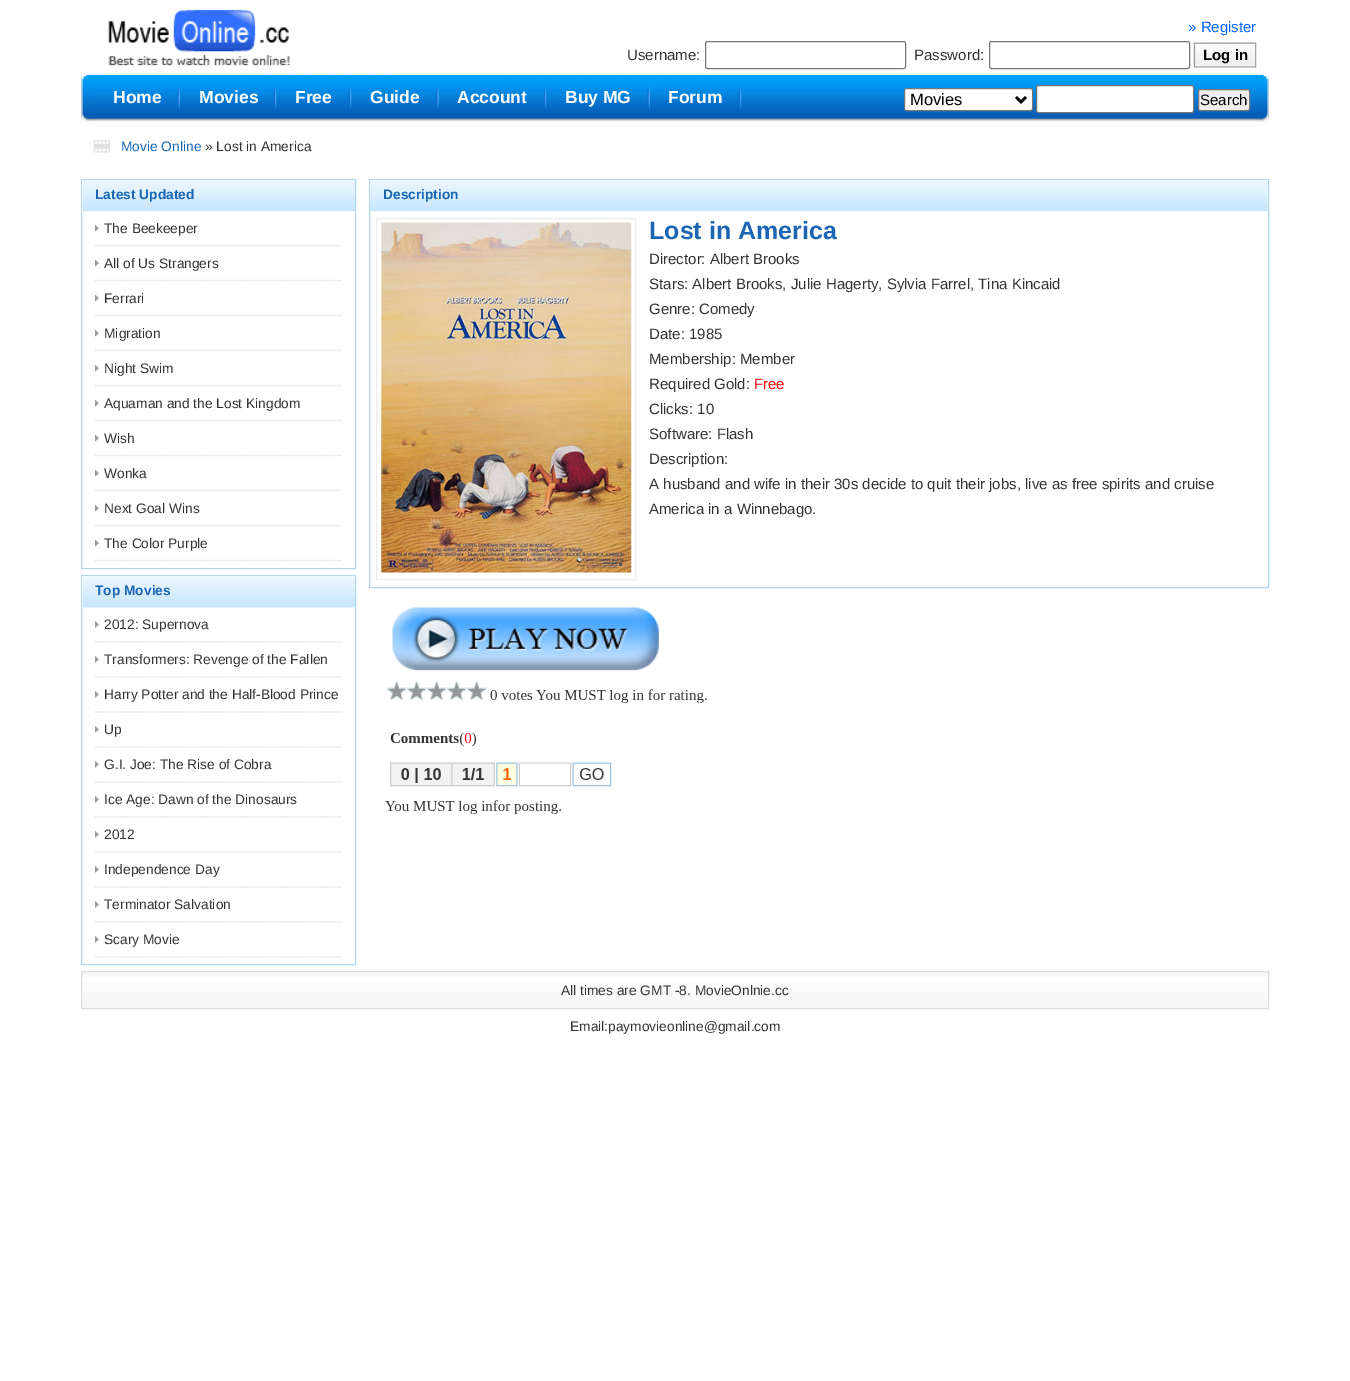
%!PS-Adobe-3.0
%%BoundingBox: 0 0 1350 1381
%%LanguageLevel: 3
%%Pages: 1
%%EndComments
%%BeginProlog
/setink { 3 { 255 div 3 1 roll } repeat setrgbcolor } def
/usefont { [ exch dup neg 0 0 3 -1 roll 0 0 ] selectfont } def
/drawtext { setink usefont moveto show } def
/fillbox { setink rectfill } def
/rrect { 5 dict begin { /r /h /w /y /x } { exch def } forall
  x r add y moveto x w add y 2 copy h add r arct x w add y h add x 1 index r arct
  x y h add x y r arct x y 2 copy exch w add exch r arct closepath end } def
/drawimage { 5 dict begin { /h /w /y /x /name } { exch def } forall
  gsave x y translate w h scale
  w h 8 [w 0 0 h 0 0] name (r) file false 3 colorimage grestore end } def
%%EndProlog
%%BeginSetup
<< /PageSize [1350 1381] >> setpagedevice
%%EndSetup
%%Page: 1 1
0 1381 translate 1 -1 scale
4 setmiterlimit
0 0 1350 1381 255 255 255 fillbox
(assets/img1.rgb) 108 9 183 57 drawimage
(» Register) 1188 32 /LiberationSans-Regular 15 0 102 255 drawtext
(Username:) 627 60 /LiberationSans-Regular 15 51 51 51 drawtext
118 118 118 setink
705.5 41.5 200 27 2 rrect stroke
(Password:) 914 60 /LiberationSans-Regular 15 51 51 51 drawtext
118 118 118 setink
989.5 41.5 200 27 2 rrect stroke
(assets/img2.rgb) 1193 42 64 26 drawimage
(Log in) 1203 60 /LiberationSans-Bold 15 0 0 0 drawtext
(assets/img3.rgb) 81 75 1188 47 drawimage
(assets/img4.rgb) 81 75 13 47 drawimage
(assets/img5.rgb) 1256 75 13 47 drawimage
(assets/img6.rgb) 177 86 3 24 drawimage
(Home) 113 103 /LiberationSans-Bold 17.5 255 255 255 drawtext
(assets/img7.rgb) 273 86 4 24 drawimage
(Movies) 199 103 /LiberationSans-Bold 17.5 255 255 255 drawtext
(assets/img7.rgb) 348 86 4 24 drawimage
(Free) 295 103 /LiberationSans-Bold 17.5 255 255 255 drawtext
(assets/img8.rgb) 436 86 3 23 drawimage
(Guide) 370 103 /LiberationSans-Bold 17.5 255 255 255 drawtext
(assets/img9.rgb) 543 86 4 24 drawimage
(Account) 457 103 /LiberationSans-Bold 17.5 255 255 255 drawtext
(assets/img6.rgb) 647 86 3 24 drawimage
(Buy MG) 565 103 /LiberationSans-Bold 17.5 255 255 255 drawtext
(assets/img10.rgb) 738 86 4 24 drawimage
(Forum) 668 103 /LiberationSans-Bold 17.5 255 255 255 drawtext
904.5 88.5 128 22 2 rrect gsave fill grestore
118 118 118 setink
stroke
0 0 0 setink
2.5 setlinewidth
1016 97 moveto 1021 102 lineto 1026 97 lineto stroke
(Movies) 910 105 /LiberationSans-Regular 16.5 0 0 0 drawtext
255 255 255 setink
1036.5 85.5 157 27 2 rrect gsave fill grestore
118 118 118 setink
1 setlinewidth
stroke
239 239 239 setink
1198.5 89.5 51 21 2 rrect gsave fill grestore
118 118 118 setink
stroke
(Search) 1200 105 /LiberationSans-Regular 15 0 0 0 drawtext
(assets/img11.rgb) 93 140 17 13 drawimage
(Movie Online) 121 151 /LiberationSans-Regular 13.75 26 102 179 drawtext
(» Lost in America) 205 151 /LiberationSans-Regular 13.75 51 51 51 drawtext
177 215 238 setink
81.5 179.5 274 389 rectstroke
(assets/img12.rgb) 82 180 273 32 drawimage
(Latest Updated) 95 199 /LiberationSans-Bold 13.75 26 102 179 drawtext
(assets/img13.rgb) 95 225 4 7 drawimage
221 221 221 setink
1.2 setlinewidth
[1.25 1.25] 0 setdash
95 245.5 moveto 342.5 245.5 lineto stroke
(The Beekeeper) 104 233 /LiberationSans-Regular 13.75 51 51 51 drawtext
(assets/img13.rgb) 95 260 4 7 drawimage
221 221 221 setink
95 280.5 moveto 342.5 280.5 lineto stroke
(All of Us Strangers) 104 268 /LiberationSans-Regular 13.75 51 51 51 drawtext
(assets/img13.rgb) 95 295 4 7 drawimage
221 221 221 setink
95 315.5 moveto 342.5 315.5 lineto stroke
(Ferrari) 104 303 /LiberationSans-Regular 13.75 51 51 51 drawtext
(assets/img13.rgb) 95 330 4 7 drawimage
221 221 221 setink
95 350.5 moveto 342.5 350.5 lineto stroke
(Migration) 104 338 /LiberationSans-Regular 13.75 51 51 51 drawtext
(assets/img13.rgb) 95 365 4 7 drawimage
221 221 221 setink
95 385.5 moveto 342.5 385.5 lineto stroke
(Night Swim) 104 373 /LiberationSans-Regular 13.75 51 51 51 drawtext
(assets/img13.rgb) 95 400 4 7 drawimage
221 221 221 setink
95 420.5 moveto 342.5 420.5 lineto stroke
(Aquaman and the Lost Kingdom) 104 408 /LiberationSans-Regular 13.75 51 51 51 drawtext
(assets/img13.rgb) 95 435 4 7 drawimage
221 221 221 setink
95 455.5 moveto 342.5 455.5 lineto stroke
(Wish) 104 443 /LiberationSans-Regular 13.75 51 51 51 drawtext
(assets/img13.rgb) 95 470 4 7 drawimage
221 221 221 setink
95 490.5 moveto 342.5 490.5 lineto stroke
(Wonka) 104 478 /LiberationSans-Regular 13.75 51 51 51 drawtext
(assets/img13.rgb) 95 505 4 7 drawimage
221 221 221 setink
95 525.5 moveto 342.5 525.5 lineto stroke
(Next Goal Wins) 104 513 /LiberationSans-Regular 13.75 51 51 51 drawtext
(assets/img13.rgb) 95 540 4 7 drawimage
221 221 221 setink
95 560.5 moveto 342.5 560.5 lineto stroke
(The Color Purple) 104 548 /LiberationSans-Regular 13.75 51 51 51 drawtext
177 215 238 setink
1 setlinewidth
[] 0 setdash
81.5 575.5 274 389 rectstroke
(assets/img14.rgb) 82 576 273 32 drawimage
(Top Movies) 95 595 /LiberationSans-Bold 13.75 26 102 179 drawtext
(assets/img15.rgb) 95 621 4 7 drawimage
221 221 221 setink
1.2 setlinewidth
[1.25 1.25] 0 setdash
95 642 moveto 342.5 642 lineto stroke
(2012: Supernova) 104 629 /LiberationSans-Regular 13.75 51 51 51 drawtext
(assets/img15.rgb) 95 656 4 7 drawimage
221 221 221 setink
95 677 moveto 342.5 677 lineto stroke
(Transformers: Revenge of the Fallen) 104 664 /LiberationSans-Regular 13.75 51 51 51 drawtext
(assets/img15.rgb) 95 691 4 7 drawimage
221 221 221 setink
95 712 moveto 342.5 712 lineto stroke
(Harry Potter and the Half-Blood Prince) 104 699 /LiberationSans-Regular 13.75 51 51 51 drawtext
(assets/img15.rgb) 95 726 4 7 drawimage
221 221 221 setink
95 747 moveto 342.5 747 lineto stroke
(Up) 104 734 /LiberationSans-Regular 13.75 51 51 51 drawtext
(assets/img15.rgb) 95 761 4 7 drawimage
221 221 221 setink
95 782 moveto 342.5 782 lineto stroke
(G.I. Joe: The Rise of Cobra) 104 769 /LiberationSans-Regular 13.75 51 51 51 drawtext
(assets/img15.rgb) 95 796 4 7 drawimage
221 221 221 setink
95 817 moveto 342.5 817 lineto stroke
(Ice Age: Dawn of the Dinosaurs) 104 804 /LiberationSans-Regular 13.75 51 51 51 drawtext
(assets/img15.rgb) 95 831 4 7 drawimage
221 221 221 setink
95 852 moveto 342.5 852 lineto stroke
(2012) 104 839 /LiberationSans-Regular 13.75 51 51 51 drawtext
(assets/img15.rgb) 95 866 4 7 drawimage
221 221 221 setink
95 887 moveto 342.5 887 lineto stroke
(Independence Day) 104 874 /LiberationSans-Regular 13.75 51 51 51 drawtext
(assets/img15.rgb) 95 901 4 7 drawimage
221 221 221 setink
95 922 moveto 342.5 922 lineto stroke
(Terminator Salvation) 104 909 /LiberationSans-Regular 13.75 51 51 51 drawtext
(assets/img15.rgb) 95 936 4 7 drawimage
221 221 221 setink
95 957 moveto 342.5 957 lineto stroke
(Scary Movie) 104 944 /LiberationSans-Regular 13.75 51 51 51 drawtext
177 215 238 setink
1 setlinewidth
[] 0 setdash
369.5 179.5 899 408 rectstroke
(assets/img16.rgb) 370 180 898 32 drawimage
(Description) 383 199 /LiberationSans-Bold 13.75 26 102 179 drawtext
237 237 237 setink
376.5 218.5 259 361 rectstroke
(assets/img17.rgb) 381 222 251 351 drawimage
(Lost in America) 649 239 /LiberationSans-Bold 25 26 102 179 drawtext
(Director: Albert Brooks) 649 264 /LiberationSans-Regular 15 51 51 51 drawtext
(Stars: Albert Brooks, Julie Hagerty, Sylvia Farrel, Tina Kincaid) 649 289 /LiberationSans-Regular 15 51 51 51 drawtext
(Genre: Comedy) 649 314 /LiberationSans-Regular 15 51 51 51 drawtext
(Date: 1985) 649 339 /LiberationSans-Regular 15 51 51 51 drawtext
(Membership: Member) 649 364 /LiberationSans-Regular 15 51 51 51 drawtext
(Required Gold:) 649 389 /LiberationSans-Regular 15 51 51 51 drawtext
(Free) 754 389 /LiberationSans-Regular 15 255 0 0 drawtext
(Clicks: 10) 649 414 /LiberationSans-Regular 15 51 51 51 drawtext
(Software: Flash) 649 439 /LiberationSans-Regular 15 51 51 51 drawtext
(Description:) 649 464 /LiberationSans-Regular 15 51 51 51 drawtext
(A husband and wife in their 30s decide to quit their jobs, live as free spirits and cruise) 649 489 /LiberationSans-Regular 15 51 51 51 drawtext
(America in a Winnebago.) 649 514 /LiberationSans-Regular 15 51 51 51 drawtext
(assets/img18.rgb) 392 607 267 64 drawimage
(assets/img19.rgb) 386 681 321 22 drawimage
(assets/img20.rgb) 385 732 227 82 drawimage
(assets/img21.rgb) 82 972 1186 36 drawimage
221 221 221 setink
81.5 971.5 1187 37 rectstroke
(All times are GMT -8. MovieOnlnie.cc) 561 995 /LiberationSans-Regular 13.75 51 51 51 drawtext
(Email:paymovieonline@gmail.com) 570 1031 /LiberationSans-Regular 13.75 51 51 51 drawtext
showpage
%%EOF
